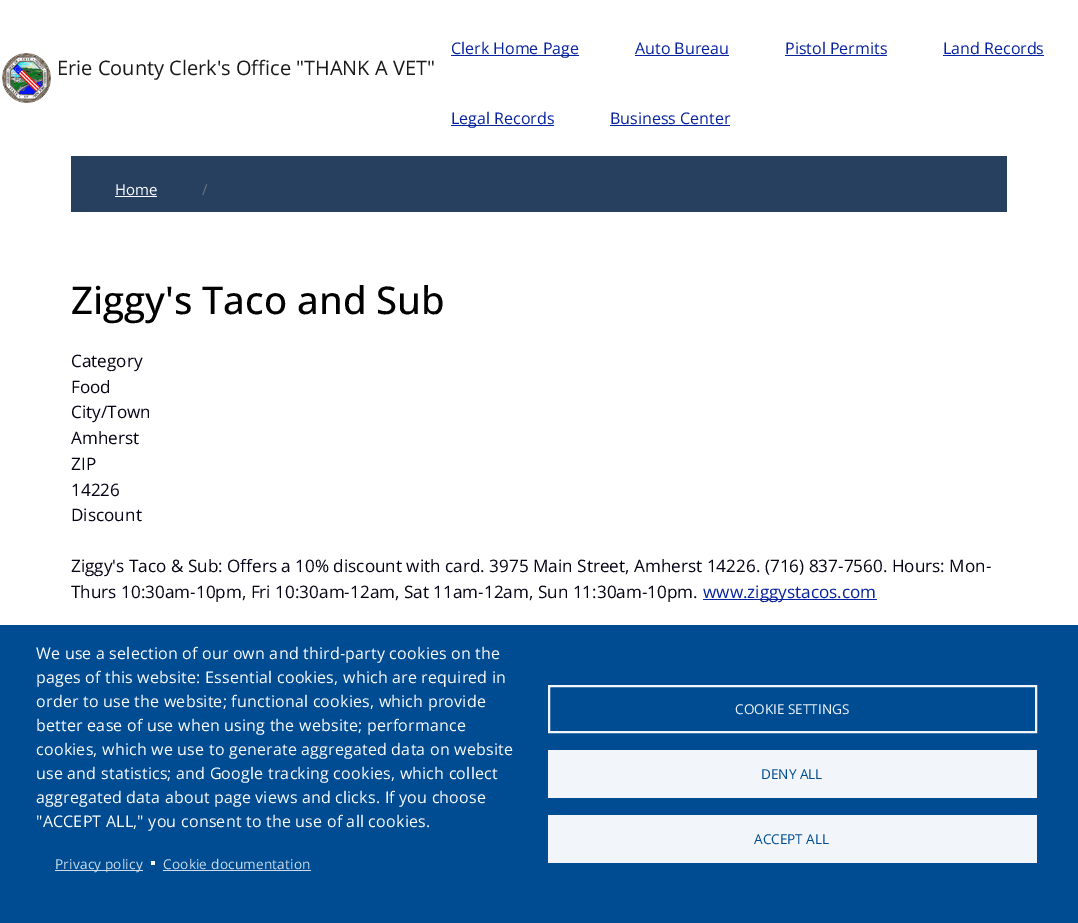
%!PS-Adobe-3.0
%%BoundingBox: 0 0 1078 923
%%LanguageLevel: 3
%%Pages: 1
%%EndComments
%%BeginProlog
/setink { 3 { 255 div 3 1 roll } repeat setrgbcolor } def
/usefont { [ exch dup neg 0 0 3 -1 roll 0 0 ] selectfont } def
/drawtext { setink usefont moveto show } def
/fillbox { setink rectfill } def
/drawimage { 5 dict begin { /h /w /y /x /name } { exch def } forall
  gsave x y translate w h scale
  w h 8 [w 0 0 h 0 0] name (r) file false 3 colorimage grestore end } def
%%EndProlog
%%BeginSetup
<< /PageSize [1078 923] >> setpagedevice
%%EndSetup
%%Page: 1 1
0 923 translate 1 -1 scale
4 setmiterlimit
0 0 1078 923 255 255 255 fillbox
(assets/img1.rgb) 2 53 49 50 drawimage
(Erie County Clerk's Office "THANK A VET") 57 75 /OpenSans-Regular 20 26 26 26 drawtext
451 55 128 1 6 34 157 fillbox
(Clerk Home Page) 451 54 /OpenSans-Regular 16 6 34 157 drawtext
(Auto Bureau) 635 54 /OpenSans-Regular 16 6 34 157 drawtext
635 55 94 1 6 34 157 fillbox
(Pistol Permits) 785 54 /OpenSans-Regular 16 6 34 157 drawtext
785 55 102 1 6 34 157 fillbox
(Land Records) 943 54 /OpenSans-Regular 16 6 34 157 drawtext
943 55 101 1 6 34 157 fillbox
451 125 103 1 6 34 157 fillbox
(Legal Records) 451 124 /OpenSans-Regular 16 6 34 157 drawtext
(Business Center) 610 124 /OpenSans-Regular 16 6 34 157 drawtext
610 125 120 1 6 34 157 fillbox
71 156 936 56 39 64 96 fillbox
(Home) 115 195 /OpenSans-Regular 15 255 255 255 drawtext
115 196 42 1 255 255 255 fillbox
(/) 202 195 /OpenSans-Regular 15 108 117 125 drawtext
(Ziggy's Taco and Sub) 71 314 /OpenSans-Medium 38.25 0 0 0 drawtext
(Category) 71 367 /OpenSans-Regular 17.15 5 3 21 drawtext
(Food) 71 393 /OpenSans-Regular 17.15 5 3 21 drawtext
(City/Town) 71 418 /OpenSans-Regular 17.15 5 3 21 drawtext
(Amherst) 71 444 /OpenSans-Regular 17.15 5 3 21 drawtext
(ZIP) 71 470 /OpenSans-Regular 17.15 5 3 21 drawtext
(14226) 71 496 /OpenSans-Regular 17.15 5 3 21 drawtext
(Discount) 71 521 /OpenSans-Regular 17.15 5 3 21 drawtext
(Ziggy's Taco & Sub: Offers a 10% discount with card. 3975 Main Street, Amherst 14226. \(716\) 837-7560. Hours: Mon-) 71 572 /OpenSans-Regular 17.15 5 3 21 drawtext
(Thurs 10:30am-10pm, Fri 10:30am-12am, Sat 11am-12am, Sun 11:30am-10pm.) 71 598 /OpenSans-Regular 17.15 5 3 21 drawtext
703 599 174 1 6 34 157 fillbox
(www.ziggystacos.com) 703 598 /OpenSans-Regular 17.15 6 34 157 drawtext
0 625 1078 298 0 76 147 fillbox
/OpenSans-Regular 16 usefont
255 255 255 setink
36 659 moveto 0.2 0 (We use a selection of our own and third-party cookies on the) ashow
36 683 moveto 0.2 0 (pages of this website: Essential cookies, which are required in) ashow
36 707 moveto 0.2 0 (order to use the website; functional cookies, which provide) ashow
36 731 moveto 0.2 0 (better ease of use when using the website; performance) ashow
36 755 moveto 0.2 0 (cookies, which we use to generate aggregated data on website) ashow
36 779 moveto 0.2 0 (use and statistics; and Google tracking cookies, which collect) ashow
36 803 moveto 0.2 0 (aggregated data about page views and clicks. If you choose) ashow
36 827 moveto 0.2 0 ("ACCEPT ALL," you consent to the use of all cookies.) ashow
55 870 88 1 204 219 233 fillbox
/OpenSans-Regular 13.6 usefont
205 220 234 setink
55 869 moveto 0.2 0 (Privacy policy) ashow
151 861 4 4 255 255 255 fillbox
205 220 234 setink
163 869 moveto 0.2 0 (Cookie documentation) ashow
163 870 148 1 204 219 233 fillbox
242 246 250 setink
2 setlinewidth
549 686 487 46 rectstroke
(COOKIE SETTINGS) 735 714 /OpenSans-Regular 13.6 242 246 250 drawtext
548 750 489 48 242 246 250 fillbox
(DENY ALL) 761 779 /OpenSans-Regular 13.6 0 76 147 drawtext
548 815 489 48 242 246 250 fillbox
(ACCEPT ALL) 754 844 /OpenSans-Regular 13.6 0 76 147 drawtext
showpage
%%EOF
